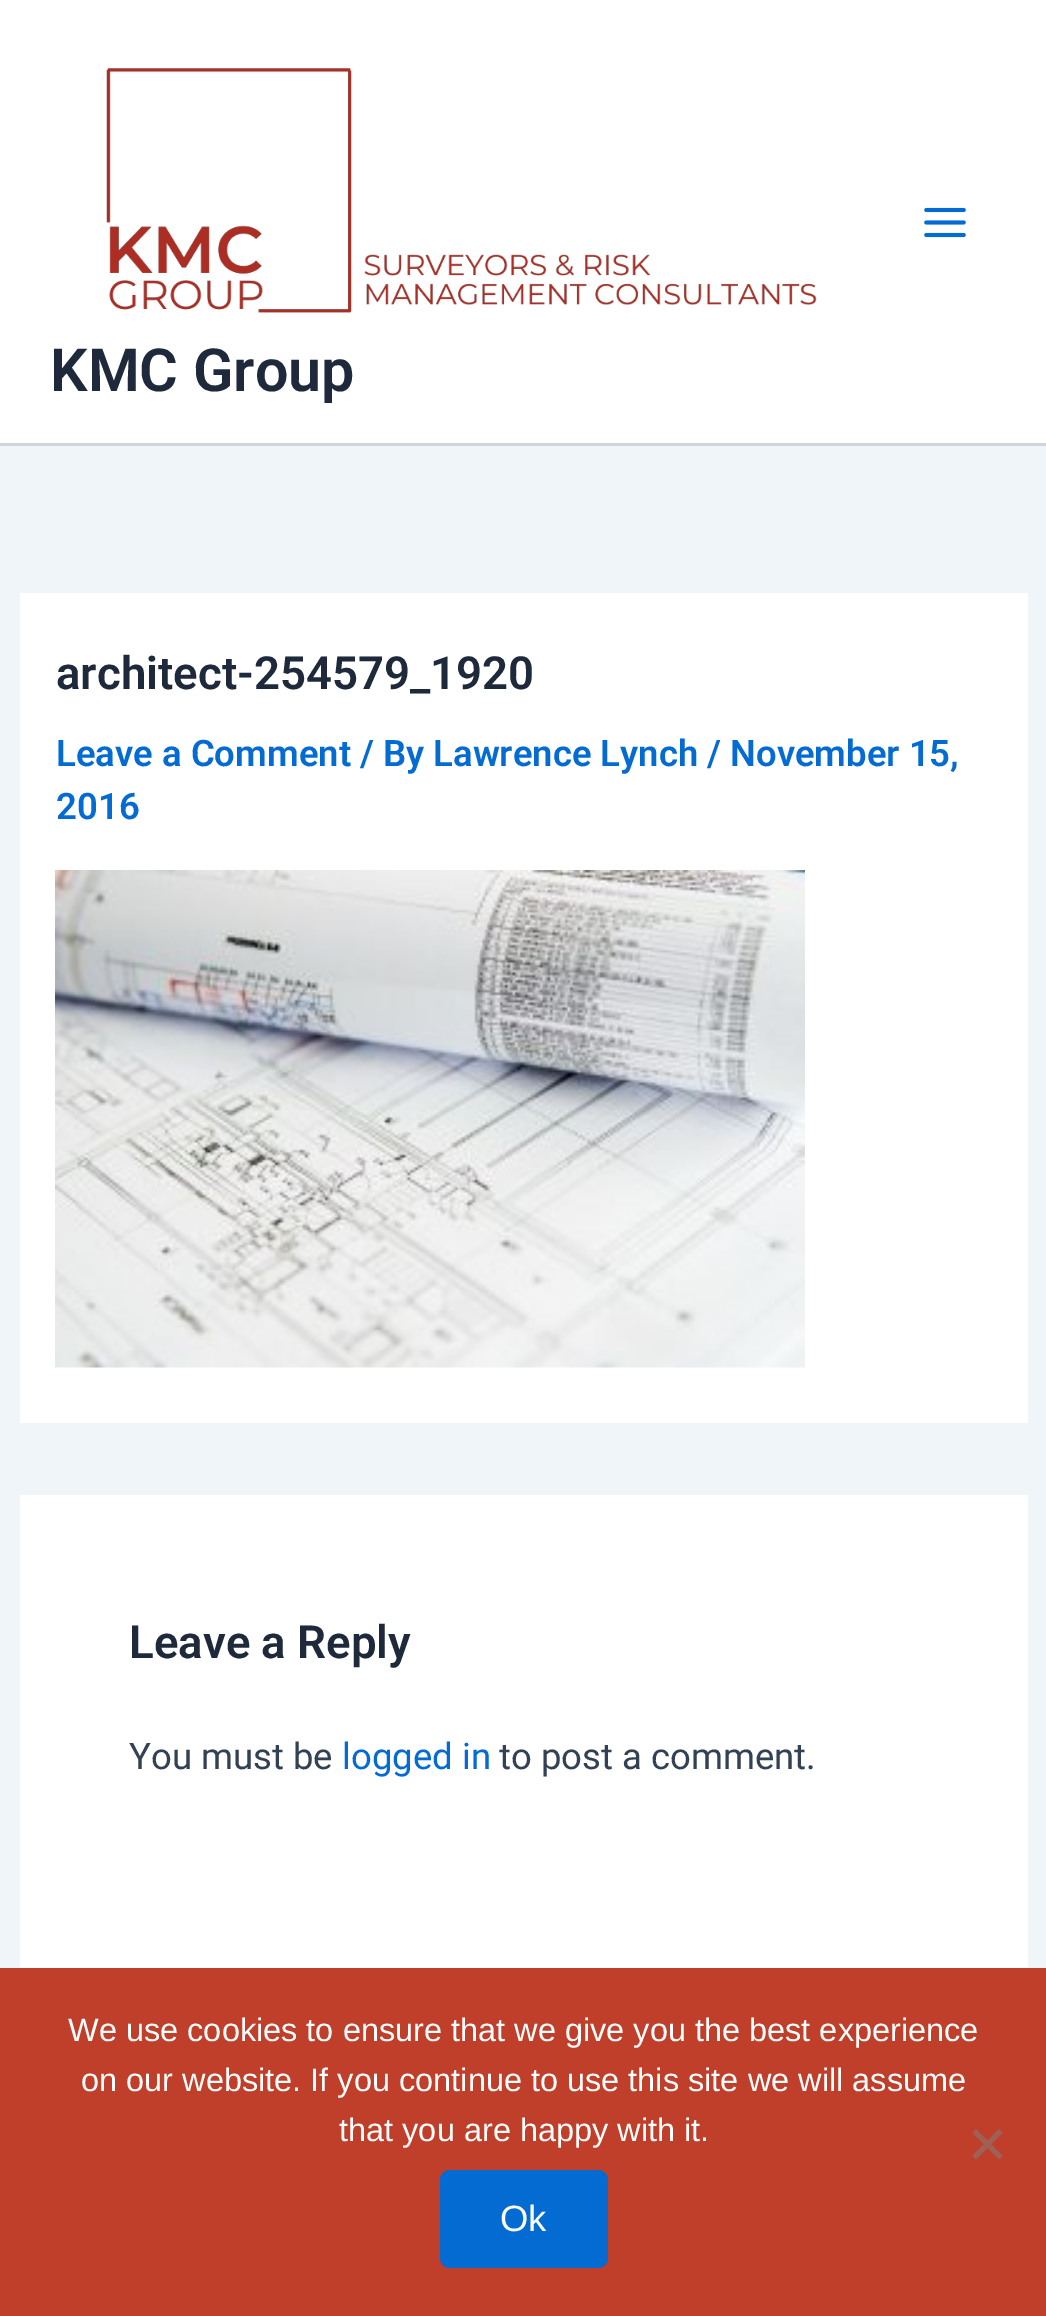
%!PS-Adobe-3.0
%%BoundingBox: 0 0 1046 2316
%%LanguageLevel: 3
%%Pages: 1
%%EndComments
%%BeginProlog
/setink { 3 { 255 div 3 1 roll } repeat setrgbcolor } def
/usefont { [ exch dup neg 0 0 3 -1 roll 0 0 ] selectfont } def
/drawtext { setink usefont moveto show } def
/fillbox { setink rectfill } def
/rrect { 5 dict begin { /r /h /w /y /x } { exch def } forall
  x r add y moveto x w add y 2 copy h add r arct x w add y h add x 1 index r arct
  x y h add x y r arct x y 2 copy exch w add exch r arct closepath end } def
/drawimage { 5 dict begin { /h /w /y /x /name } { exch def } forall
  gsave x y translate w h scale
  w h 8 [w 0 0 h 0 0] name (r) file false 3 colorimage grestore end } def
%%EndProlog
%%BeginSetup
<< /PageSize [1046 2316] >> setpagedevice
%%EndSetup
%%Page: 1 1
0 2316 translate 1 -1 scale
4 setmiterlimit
0 0 1046 2316 240 245 250 fillbox
0 0 1046 443 255 255 255 fillbox
0 443 1046 3 209 213 219 fillbox
(assets/img1.rgb) 924 207 42 31 drawimage
(assets/img2.rgb) 106 68 711 245 drawimage
(KMC Group) 50 391 /Roboto-SemiBold 59.25 30 41 59 drawtext
20 593 1008 830 255 255 255 fillbox
(architect-254579_1920) 56 689 /Roboto-SemiBold 45.6 30 41 59 drawtext
(Leave a Comment / By Lawrence Lynch / November 15,) 56 766 /Roboto-SemiBold 36.5 4 107 210 drawtext
(2016) 56 819 /Roboto-SemiBold 36.5 4 107 210 drawtext
(assets/img3.rgb) 55 870 750 498 drawimage
20 1495 1008 473 255 255 255 fillbox
(Leave a Reply) 129 1658 /Roboto-SemiBold 45.6 30 41 59 drawtext
(You must be) 129 1769 /Roboto-Regular 36.5 51 65 85 drawtext
(logged in) 342 1769 /Roboto-Regular 36.5 4 107 210 drawtext
(to post a comment.) 499 1769 /Roboto-Regular 36.5 51 65 85 drawtext
0 1968 1046 348 191 63 43 fillbox
(We use cookies to ensure that we give you the best experience) 68 2041 /LiberationSans-Regular 32.5 255 255 255 drawtext
(on our website. If you continue to use this site we will assume) 81 2091 /LiberationSans-Regular 32.5 255 255 255 drawtext
(that you are happy with it.) 339 2141 /LiberationSans-Regular 32.5 255 255 255 drawtext
160 96 86 setink
999 2129 moveto 1002.5 2133 lineto 976 2159.5 lineto 972.5 2155.5 lineto closepath fill
972.5 2133 moveto 976 2129 lineto 1002.5 2155.5 lineto 999 2159.5 lineto closepath fill
4 107 210 setink
440 2170 168 98 10 rrect fill
(Ok) 500 2231 /LiberationSans-Regular 36.5 255 255 255 drawtext
showpage
%%EOF
